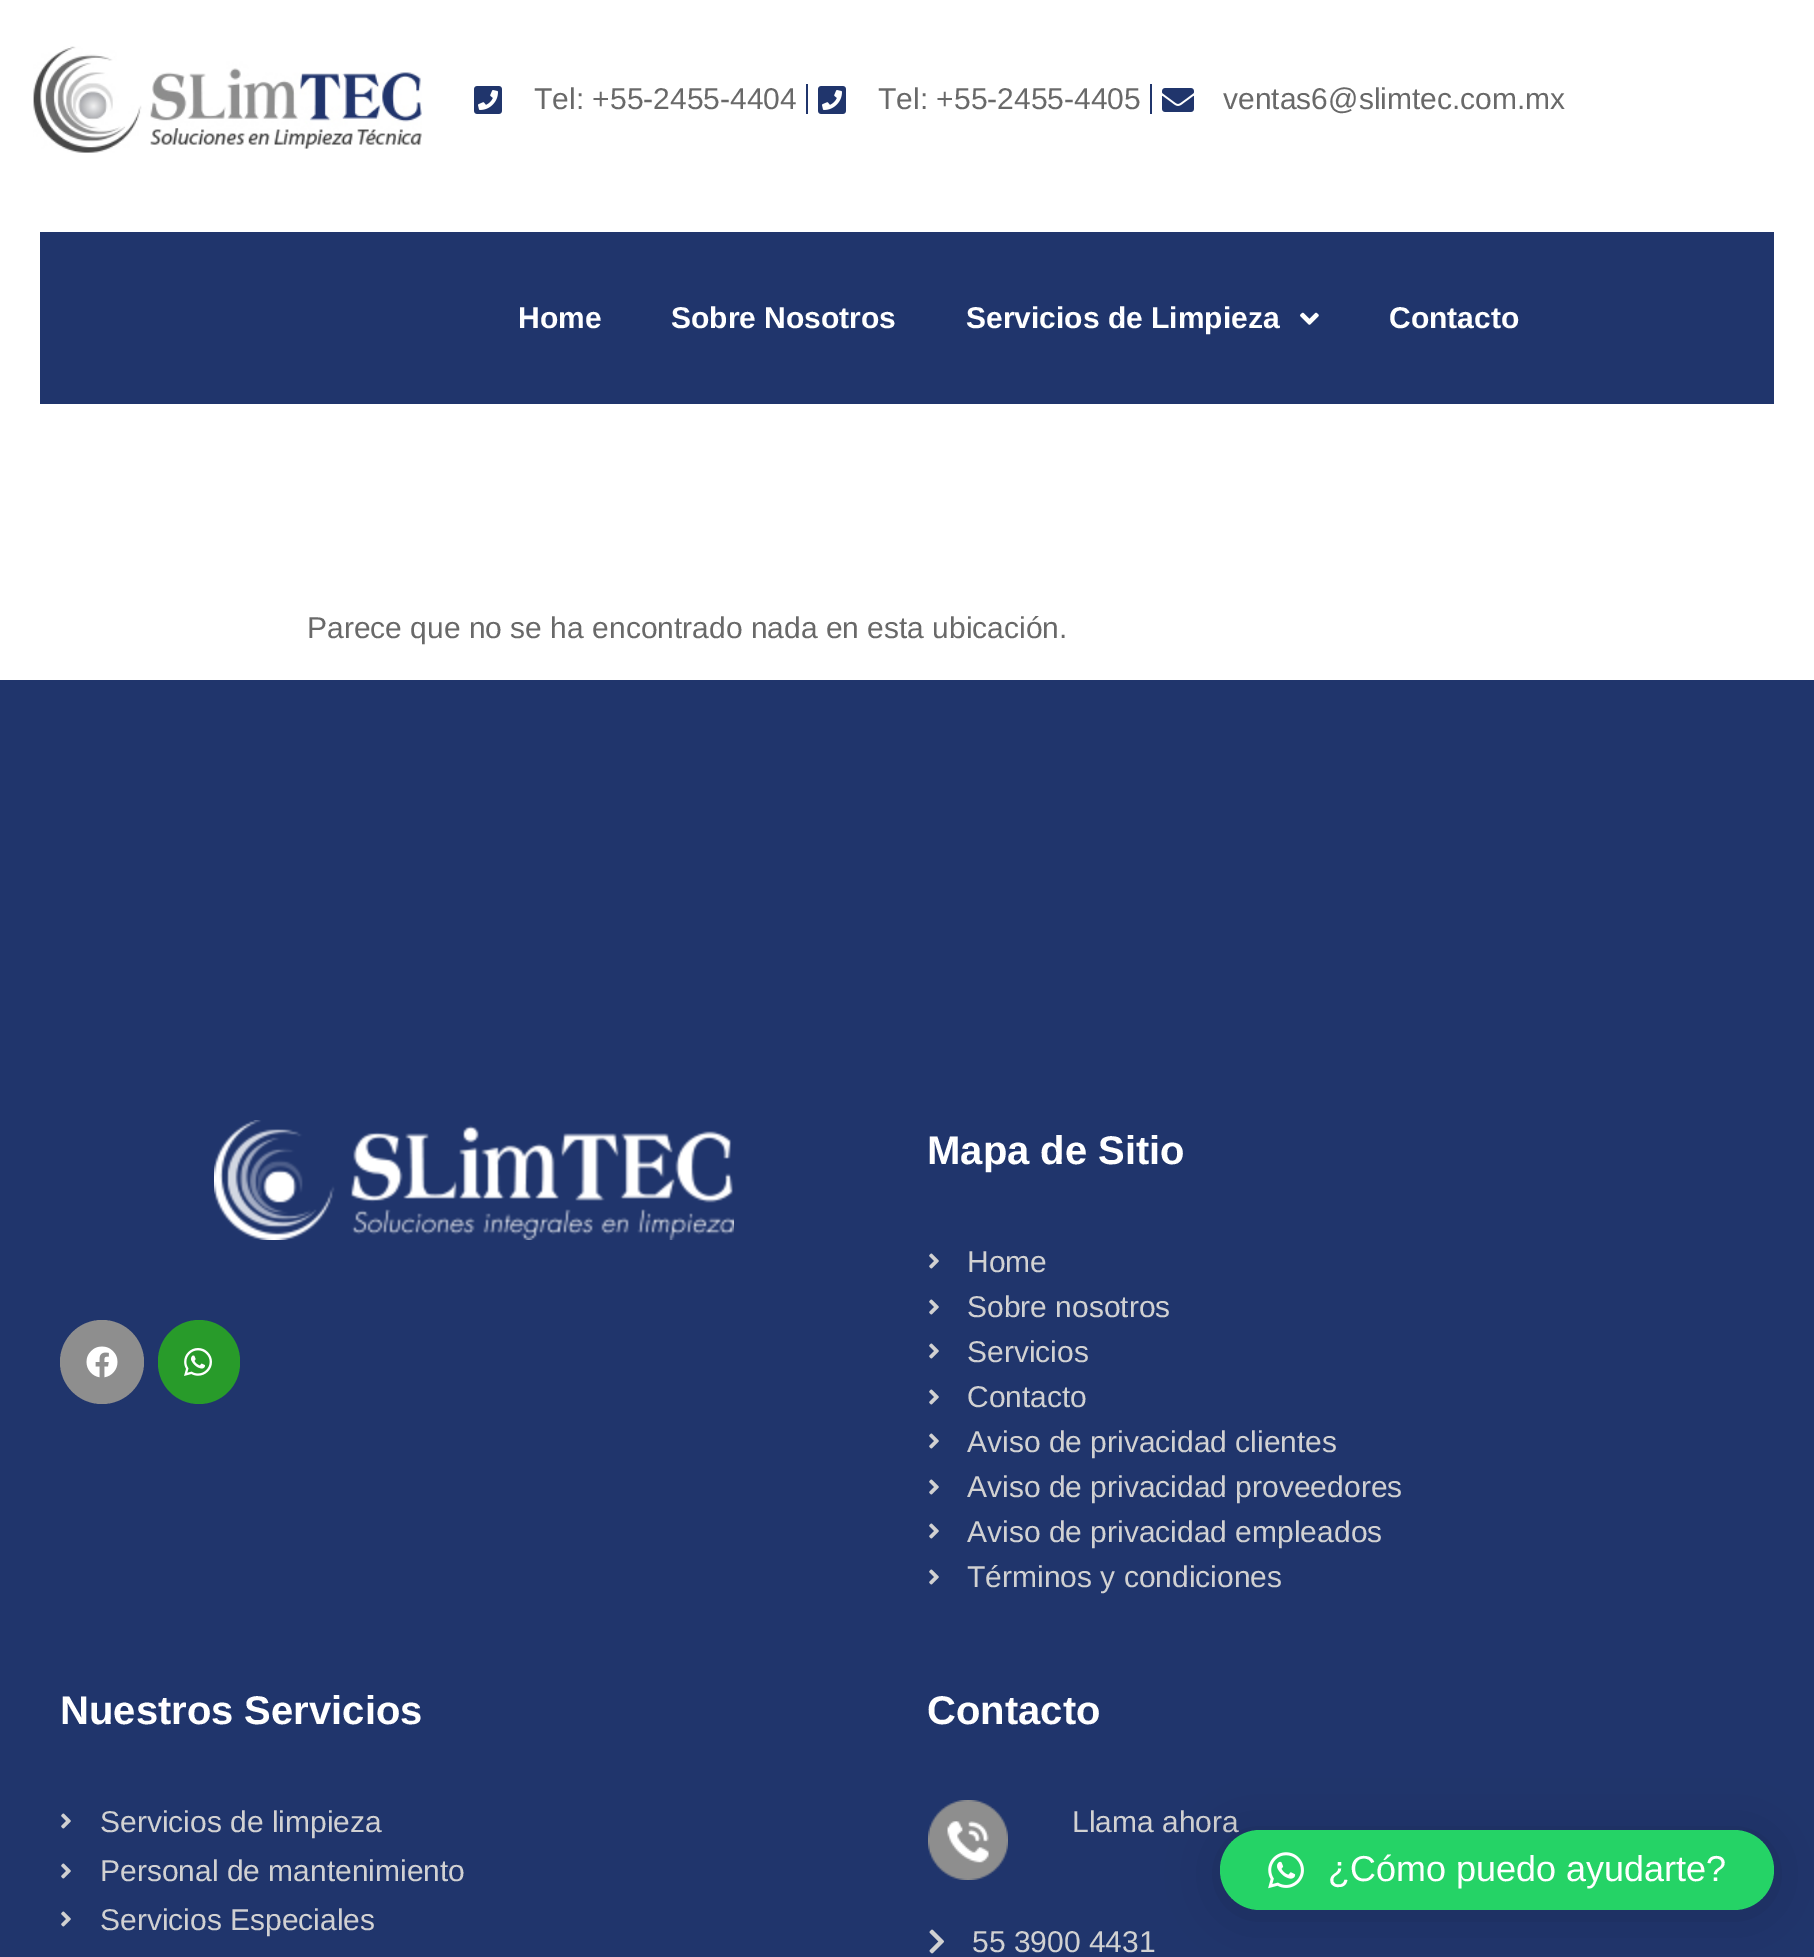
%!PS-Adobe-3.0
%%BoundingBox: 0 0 1814 1957
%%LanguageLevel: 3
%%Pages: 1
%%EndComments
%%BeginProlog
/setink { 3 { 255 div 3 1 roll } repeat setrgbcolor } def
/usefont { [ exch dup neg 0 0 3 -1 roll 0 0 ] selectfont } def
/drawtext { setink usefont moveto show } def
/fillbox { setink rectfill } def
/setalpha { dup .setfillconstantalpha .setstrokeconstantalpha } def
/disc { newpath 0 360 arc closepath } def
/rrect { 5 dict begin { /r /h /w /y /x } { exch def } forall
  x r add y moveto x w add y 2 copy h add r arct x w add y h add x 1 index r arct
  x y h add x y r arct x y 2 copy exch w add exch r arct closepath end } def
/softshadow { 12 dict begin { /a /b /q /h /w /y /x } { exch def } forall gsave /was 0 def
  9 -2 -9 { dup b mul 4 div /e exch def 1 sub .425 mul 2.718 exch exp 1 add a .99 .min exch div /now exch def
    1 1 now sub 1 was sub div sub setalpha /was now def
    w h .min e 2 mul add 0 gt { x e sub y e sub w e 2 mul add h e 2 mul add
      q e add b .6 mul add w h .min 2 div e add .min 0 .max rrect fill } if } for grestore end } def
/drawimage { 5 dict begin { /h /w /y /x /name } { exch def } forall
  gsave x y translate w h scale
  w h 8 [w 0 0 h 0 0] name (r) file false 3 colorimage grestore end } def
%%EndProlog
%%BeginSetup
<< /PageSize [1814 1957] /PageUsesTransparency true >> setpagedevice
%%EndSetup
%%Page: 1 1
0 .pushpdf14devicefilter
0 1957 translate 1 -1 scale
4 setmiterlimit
0 0 1814 1957 255 255 255 fillbox
(assets/img1.rgb) 33 46 389 107 drawimage
(assets/img2.rgb) 474 86 28 28 drawimage
(Tel: +55-2455-4404) 534 109 /LiberationSans-Regular 30 105 105 105 drawtext
806 84 2 30 32 53 108 fillbox
(assets/img2.rgb) 818 86 28 28 drawimage
(Tel: +55-2455-4405) 878 109 /LiberationSans-Regular 30 105 105 105 drawtext
1150 84 2 30 32 53 108 fillbox
(assets/img3.rgb) 1162 88 32 24 drawimage
(ventas6@slimtec.com.mx) 1223 109 /LiberationSans-Regular 30 105 105 105 drawtext
40 232 1734 172 32 53 108 fillbox
(Home) 518 328 /LiberationSans-Bold 30 255 255 255 drawtext
(Sobre Nosotros) 671 328 /LiberationSans-Bold 30 255 255 255 drawtext
(Servicios de Limpieza) 966 328 /LiberationSans-Bold 30 255 255 255 drawtext
(assets/img4.rgb) 1300 312 19 13 drawimage
(Contacto) 1389 328 /LiberationSans-Bold 30 255 255 255 drawtext
(Parece que no se ha encontrado nada en esta ubicación.) 307 638 /LiberationSans-Regular 30 105 105 105 drawtext
0 680 1814 1277 32 53 108 fillbox
(assets/img5.rgb) 214 1120 520 120 drawimage
142 142 142 setink
102 1362 42 disc fill
(assets/img6.rgb) 86 1346 32 32 drawimage
40 155 42 setink
158 1320 82 84 41 rrect fill
(assets/img7.rgb) 184 1348 28 28 drawimage
(Mapa de Sitio) 927 1164 /LiberationSans-Bold 40 255 255 255 drawtext
(assets/img8.rgb) 929 1253 10 16 drawimage
(Home) 967 1272 /LiberationSans-Regular 30 209 209 210 drawtext
(assets/img8.rgb) 929 1299 10 16 drawimage
(Sobre nosotros) 967 1317 /LiberationSans-Regular 30 209 209 210 drawtext
(assets/img8.rgb) 929 1343 10 16 drawimage
(Servicios) 967 1362 /LiberationSans-Regular 30 209 209 210 drawtext
(assets/img8.rgb) 929 1389 10 16 drawimage
(Contacto) 967 1407 /LiberationSans-Regular 30 209 209 210 drawtext
(assets/img8.rgb) 929 1433 10 16 drawimage
(Aviso de privacidad clientes) 967 1452 /LiberationSans-Regular 30 209 209 210 drawtext
(assets/img8.rgb) 929 1479 10 16 drawimage
(Aviso de privacidad proveedores) 967 1497 /LiberationSans-Regular 30 209 209 210 drawtext
(assets/img8.rgb) 929 1523 10 16 drawimage
(Aviso de privacidad empleados) 967 1542 /LiberationSans-Regular 30 209 209 210 drawtext
(assets/img8.rgb) 929 1569 10 16 drawimage
(Términos y condiciones) 967 1587 /LiberationSans-Regular 30 209 209 210 drawtext
(Nuestros Servicios) 60 1724 /LiberationSans-Bold 40 255 255 255 drawtext
(assets/img8.rgb) 61 1813 10 16 drawimage
(Servicios de limpieza) 100 1832 /LiberationSans-Regular 30 209 209 210 drawtext
(assets/img8.rgb) 61 1863 10 16 drawimage
(Personal de mantenimiento) 100 1881 /LiberationSans-Regular 30 209 209 210 drawtext
(assets/img8.rgb) 61 1911 10 16 drawimage
(Servicios Especiales) 100 1930 /LiberationSans-Regular 30 209 209 210 drawtext
(Contacto) 927 1724 /LiberationSans-Bold 40 255 255 255 drawtext
(assets/img9.rgb) 928 1800 80 80 drawimage
(Llama ahora) 1072 1832 /LiberationSans-Regular 30 209 209 210 drawtext
(assets/img10.rgb) 929 1929 15 25 drawimage
(55 3900 4431) 972 1952 /LiberationSans-Regular 30 209 209 210 drawtext
0 0 0 setink
1220 1834 554 80 40 32 0.16 softshadow
37 211 102 setink
1220 1830 554 80 40 rrect fill
(assets/img11.rgb) 1268 1852 36 37 drawimage
(¿Cómo puedo ayudarte?) 1328 1881 /LiberationSans-Regular 36 255 255 255 drawtext
.poppdf14devicefilter showpage
%%EOF
